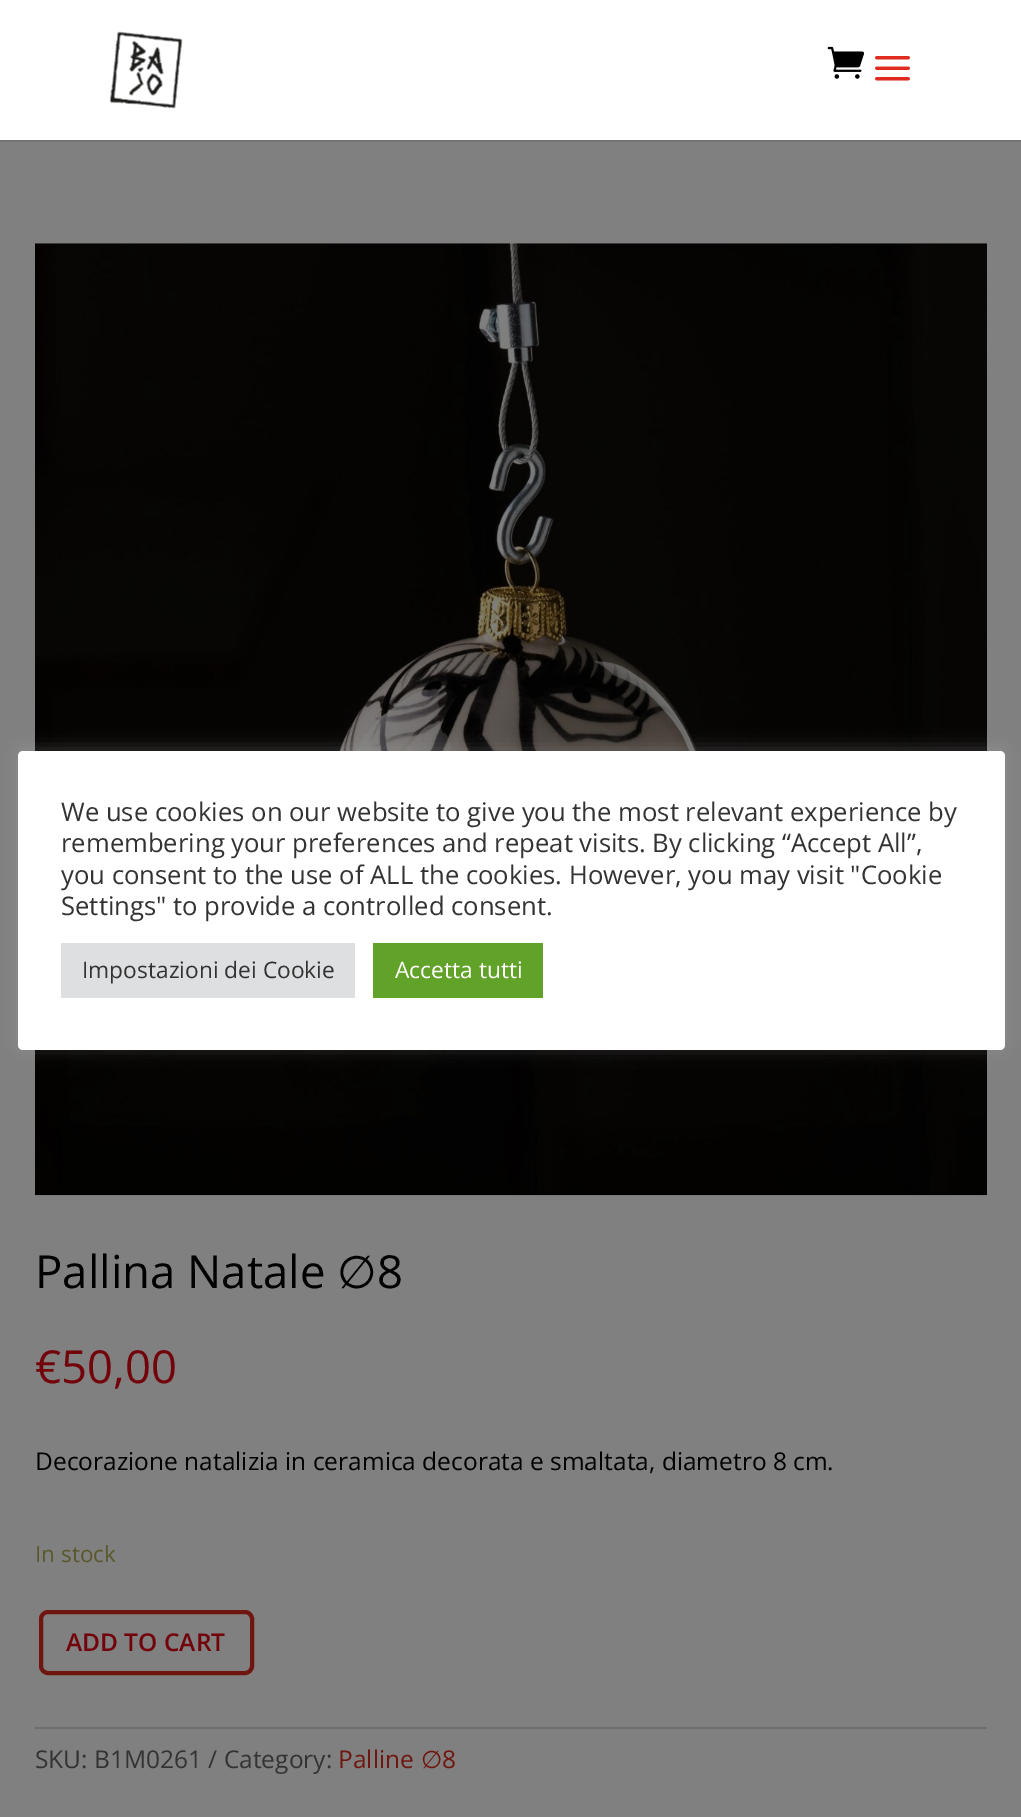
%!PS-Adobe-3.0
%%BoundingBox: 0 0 1021 1817
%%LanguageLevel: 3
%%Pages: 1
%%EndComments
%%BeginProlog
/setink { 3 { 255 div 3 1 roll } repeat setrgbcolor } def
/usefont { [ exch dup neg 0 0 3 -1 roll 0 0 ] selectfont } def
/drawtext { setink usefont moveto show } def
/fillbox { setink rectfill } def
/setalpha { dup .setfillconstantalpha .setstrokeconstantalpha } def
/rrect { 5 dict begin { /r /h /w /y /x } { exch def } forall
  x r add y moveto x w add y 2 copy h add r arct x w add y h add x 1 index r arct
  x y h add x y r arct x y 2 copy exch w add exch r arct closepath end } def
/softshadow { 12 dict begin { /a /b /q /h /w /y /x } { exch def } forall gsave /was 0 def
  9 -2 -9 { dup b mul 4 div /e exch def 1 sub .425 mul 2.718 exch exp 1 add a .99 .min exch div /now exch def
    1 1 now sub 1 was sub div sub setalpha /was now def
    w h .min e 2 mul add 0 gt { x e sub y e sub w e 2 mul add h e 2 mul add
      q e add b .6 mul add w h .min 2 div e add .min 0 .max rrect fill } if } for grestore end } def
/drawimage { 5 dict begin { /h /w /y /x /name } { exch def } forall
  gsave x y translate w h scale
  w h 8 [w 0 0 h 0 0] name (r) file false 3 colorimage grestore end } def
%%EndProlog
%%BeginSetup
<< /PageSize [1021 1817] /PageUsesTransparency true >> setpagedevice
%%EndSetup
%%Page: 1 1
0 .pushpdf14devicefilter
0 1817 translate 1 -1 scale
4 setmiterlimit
0 0 1021 1817 128 128 128 fillbox
(assets/img4.rgb) 35 243 952 953 drawimage
172 171 171 setink
18 749 987 299 5 9 0.3 softshadow
255 255 255 setink
18 751 987 299 5 rrect fill
(We use cookies on our website to give you the most relevant experience by) 61 821 /OpenSans-Regular 25.65 51 51 51 drawtext
(remembering your preferences and repeat visits. By clicking “Accept All”,) 61 852 /OpenSans-Regular 25.65 51 51 51 drawtext
(you consent to the use of ALL the cookies. However, you may visit "Cookie) 61 884 /OpenSans-Regular 25.65 51 51 51 drawtext
(Settings" to provide a controlled consent.) 61 915 /OpenSans-Regular 25.65 51 51 51 drawtext
61 943 294 55 222 223 224 fillbox
(Impostazioni dei Cookie) 82 978 /OpenSans-Regular 22.75 51 51 51 drawtext
373 943 170 55 97 162 41 fillbox
(Accetta tutti) 395 978 /OpenSans-Regular 22.75 255 255 255 drawtext
0 140 1021 2 115 115 115 fillbox
0 0 1021 140 255 255 255 fillbox
(assets/img1.rgb) 110 31 73 78 drawimage
(assets/img2.rgb) 827 46 37 33 drawimage
(assets/img3.rgb) 875 56 35 25 drawimage
(Pallina Natale) 35 1288 /OpenSans-Regular 45.5 0 0 0 drawtext
(∅) 337 1288 /DejaVuSans-Regular 45.5 0 0 0 drawtext
(8) 377 1288 /OpenSans-Regular 45.5 0 0 0 drawtext
(€50,00) 35 1383 /OpenSans-Regular 45.5 114 3 10 drawtext
(Decorazione natalizia in ceramica decorata e smaltata, diametro 8 cm.) 35 1470 /OpenSans-Regular 24.5 0 0 0 drawtext
(In stock) 35 1562 /OpenSans-Regular 22.5 90 88 42 drawtext
112 22 16 setink
4 setlinewidth
41 1612 211 61 7 rrect stroke
(ADD TO CART) 66 1651 /OpenSans-SemiBold 24.5 114 3 10 drawtext
35 1727 952 2 109 109 109 fillbox
(SKU: B1M0261 / Category:) 35 1768 /OpenSans-Regular 24.5 51 51 51 drawtext
(Palline) 338 1768 /OpenSans-Regular 24.5 112 22 16 drawtext
(∅) 421 1768 /DejaVuSans-Regular 24.5 112 22 16 drawtext
(8) 442 1768 /OpenSans-Regular 24.5 112 22 16 drawtext
.poppdf14devicefilter showpage
%%EOF
